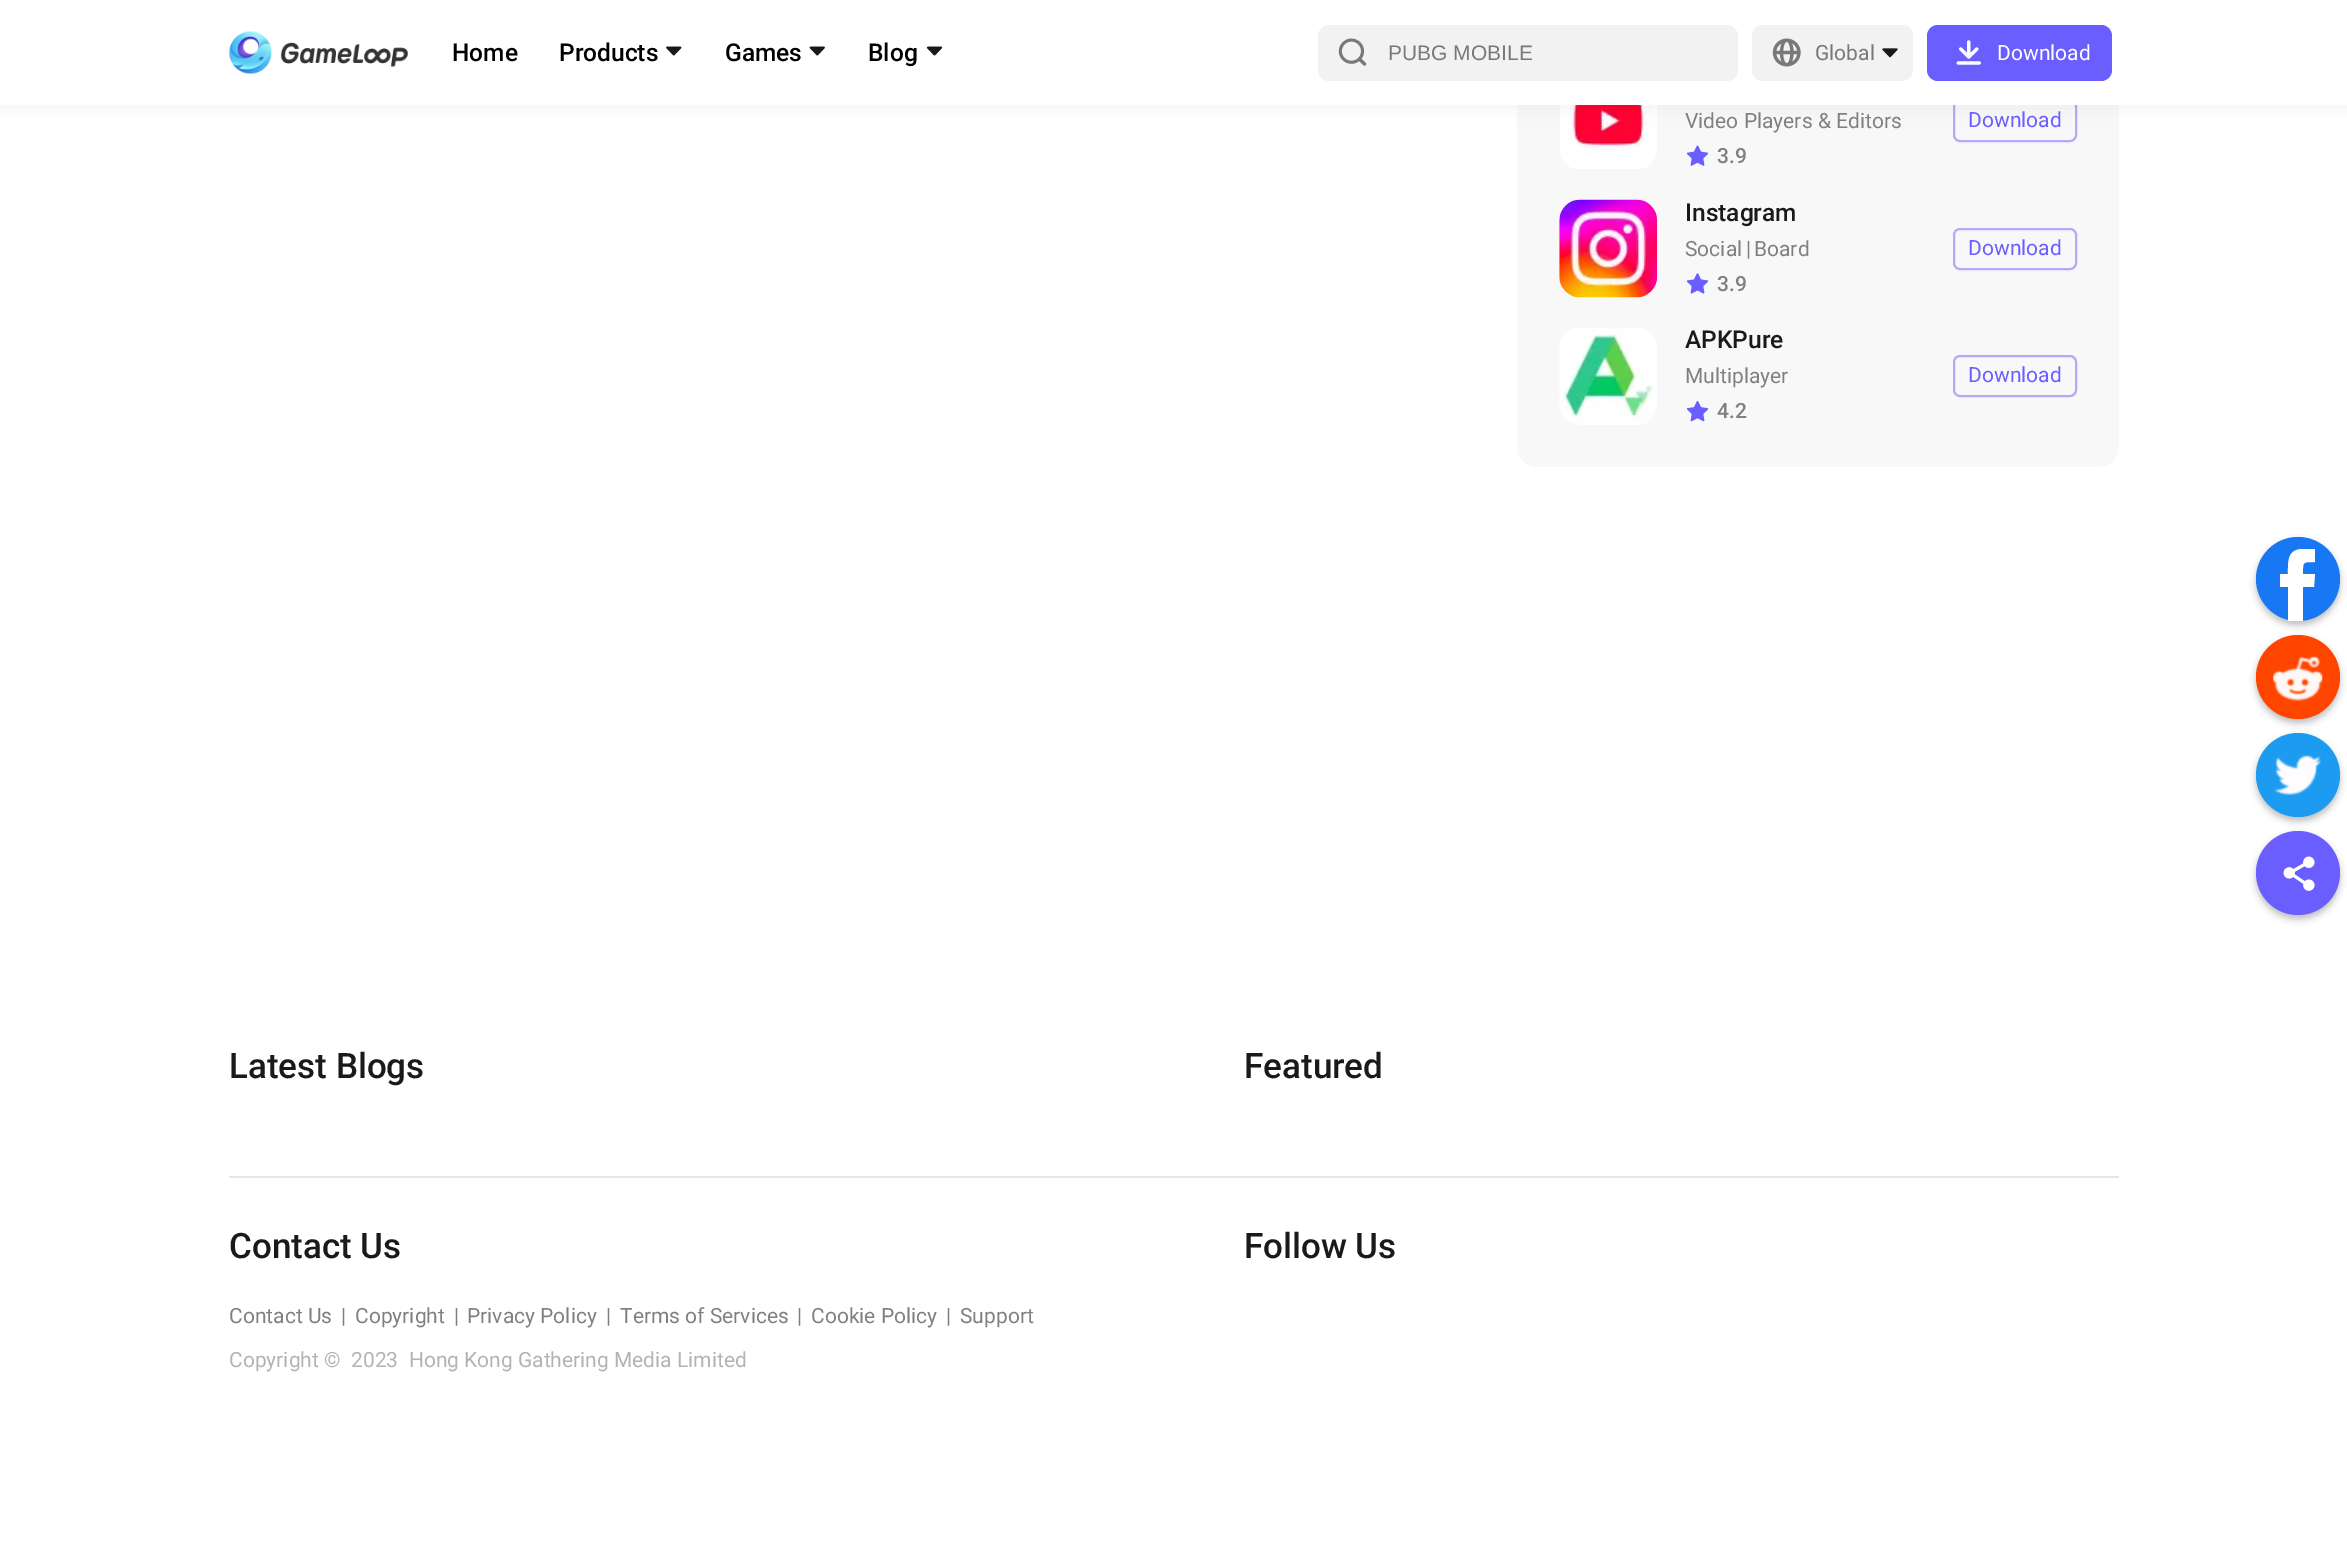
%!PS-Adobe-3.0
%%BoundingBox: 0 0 2347 1549
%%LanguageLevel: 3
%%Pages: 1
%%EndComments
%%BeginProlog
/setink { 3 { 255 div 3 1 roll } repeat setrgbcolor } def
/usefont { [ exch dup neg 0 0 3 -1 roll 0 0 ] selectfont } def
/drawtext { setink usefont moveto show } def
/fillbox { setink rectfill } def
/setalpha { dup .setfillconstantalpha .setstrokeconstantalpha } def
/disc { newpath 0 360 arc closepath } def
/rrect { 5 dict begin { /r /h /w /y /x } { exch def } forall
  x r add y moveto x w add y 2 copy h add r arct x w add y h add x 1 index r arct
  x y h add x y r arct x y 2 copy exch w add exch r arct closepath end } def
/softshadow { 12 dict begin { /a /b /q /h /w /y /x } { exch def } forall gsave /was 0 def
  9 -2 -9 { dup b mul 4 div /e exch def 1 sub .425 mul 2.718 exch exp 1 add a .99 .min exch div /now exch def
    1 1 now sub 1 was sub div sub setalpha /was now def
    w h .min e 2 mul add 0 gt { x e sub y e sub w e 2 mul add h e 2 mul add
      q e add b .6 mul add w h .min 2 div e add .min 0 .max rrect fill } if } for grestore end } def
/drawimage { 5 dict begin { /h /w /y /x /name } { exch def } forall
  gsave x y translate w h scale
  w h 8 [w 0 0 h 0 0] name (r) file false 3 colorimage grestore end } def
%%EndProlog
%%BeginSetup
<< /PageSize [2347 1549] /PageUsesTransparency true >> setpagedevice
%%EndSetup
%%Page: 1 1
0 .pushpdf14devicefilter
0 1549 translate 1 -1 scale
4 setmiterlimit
0 0 2347 1549 255 255 255 fillbox
248 248 248 setink
1517 -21 602 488 21 rrect fill
(assets/img9.rgb) 1560 105 97 64 drawimage
178 171 252 setink
2 setlinewidth
1954 101 122 40 6 rrect stroke
0 0 0 setink
0 2 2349 105 0 10 0.05 softshadow
0 0 2347 105 255 255 255 fillbox
(assets/img1.rgb) 229 31 179 43 drawimage
(Home) 452 61 /Roboto-Medium 24.5 0 0 0 drawtext
(Products) 559 61 /Roboto-Medium 24.5 0 0 0 drawtext
(assets/img2.rgb) 666 46 16 10 drawimage
(Games) 725 61 /Roboto-Medium 24.5 0 0 0 drawtext
(assets/img3.rgb) 809 46 16 10 drawimage
(Blog) 868 61 /Roboto-Medium 24.5 0 0 0 drawtext
(assets/img4.rgb) 926 46 17 10 drawimage
242 242 242 setink
1318 25 420 56 11 rrect fill
(assets/img5.rgb) 1338 38 29 28 drawimage
(PUBG MOBILE) 1388 60 /LiberationSans-Regular 21 121 121 121 drawtext
242 242 242 setink
1752 25 161 56 11 rrect fill
(assets/img6.rgb) 1772 38 29 29 drawimage
(Global) 1815 60 /Roboto-Regular 21 121 121 121 drawtext
(assets/img7.rgb) 1882 48 16 10 drawimage
107 94 255 setink
1927 25 185 56 11 rrect fill
(assets/img8.rgb) 1956 40 25 25 drawimage
(Download) 1997 60 /Roboto-Regular 21 255 255 255 drawtext
(Video Players & Editors) 1685 128 /Roboto-Regular 21 128 128 128 drawtext
(assets/img10.rgb) 1686 145 23 21 drawimage
(3.9) 1717 163 /Roboto-Medium 21 128 128 128 drawtext
(Download) 1968 127 /Roboto-Regular 21 107 94 255 drawtext
(assets/img11.rgb) 1559 199 99 99 drawimage
(Instagram) 1685 221 /Roboto-Medium 24.5 26 26 26 drawtext
(Social) 1685 256 /Roboto-Regular 21 128 128 128 drawtext
(|) 1746 256 /Roboto-Regular 21 128 128 128 drawtext
(Board) 1754 256 /Roboto-Regular 21 128 128 128 drawtext
(assets/img12.rgb) 1686 273 23 21 drawimage
(3.9) 1717 291 /Roboto-Medium 21 128 128 128 drawtext
178 171 252 setink
1954 229 122 40 6 rrect stroke
(Download) 1968 255 /Roboto-Regular 21 107 94 255 drawtext
(assets/img13.rgb) 1559 328 98 97 drawimage
(APKPure) 1685 348 /Roboto-Medium 24.5 26 26 26 drawtext
(Multiplayer) 1685 383 /Roboto-Regular 21 128 128 128 drawtext
(assets/img14.rgb) 1686 401 23 21 drawimage
(4.2) 1717 418 /Roboto-Medium 21 128 128 128 drawtext
178 171 252 setink
1954 356 122 40 6 rrect stroke
(Download) 1968 382 /Roboto-Regular 21 107 94 255 drawtext
0 0 0 setink
2256 541 84 84 42 3.5 0.25 softshadow
24 119 242 setink
2298 579 42 disc fill
gsave
2280 544 35 77 rectclip
255 255 255 setink
2303 549 moveto 2287 549 2288 562 2288 574 curveto 2280 574 lineto 2280 587 lineto 2288 587 lineto 2288 626 lineto 2303 626 lineto 2303 587 lineto 2314 587 lineto 2315 574 lineto 2303 574 lineto 2303 562 2302 562 2315 562 curveto 2315 549 lineto closepath fill
grestore
0 0 0 setink
2256 639 84 84 42 3.5 0.25 softshadow
255 69 0 setink
2298 677 42 disc fill
(assets/img15.rgb) 2273 655 50 46 drawimage
0 0 0 setink
2256 737 84 84 42 3.5 0.25 softshadow
29 155 240 setink
2298 775 42 disc fill
(assets/img16.rgb) 2274 755 48 40 drawimage
0 0 0 setink
2256 835 84 84 42 3.5 0.25 softshadow
107 94 255 setink
2298 873 42 disc fill
(assets/img17.rgb) 2283 856 32 35 drawimage
(Latest Blogs) 229 1078 /Roboto-Medium 35 26 26 26 drawtext
(Featured) 1244 1078 /Roboto-Medium 35 26 26 26 drawtext
229 1176 1890 2 230 230 230 fillbox
(Contact Us) 229 1258 /Roboto-Medium 35 26 26 26 drawtext
(Contact Us) 229 1323 /Roboto-Regular 21 128 128 128 drawtext
(|) 341 1323 /Roboto-Regular 21 128 128 128 drawtext
(Copyright) 355 1323 /Roboto-Regular 21 128 128 128 drawtext
(|) 454 1323 /Roboto-Regular 21 128 128 128 drawtext
(Privacy Policy) 467 1323 /Roboto-Regular 21 128 128 128 drawtext
(|) 606 1323 /Roboto-Regular 21 128 128 128 drawtext
(Terms of Services) 620 1323 /Roboto-Regular 21 128 128 128 drawtext
(|) 797 1323 /Roboto-Regular 21 128 128 128 drawtext
(Cookie Policy) 811 1323 /Roboto-Regular 21 128 128 128 drawtext
(|) 946 1323 /Roboto-Regular 21 128 128 128 drawtext
(Support) 960 1323 /Roboto-Regular 21 128 128 128 drawtext
(Copyright ©  2023  Hong Kong Gathering Media Limited) 229 1367 /Roboto-Regular 21 179 179 179 drawtext
(Follow Us) 1244 1258 /Roboto-Medium 35 26 26 26 drawtext
.poppdf14devicefilter showpage
%%EOF
